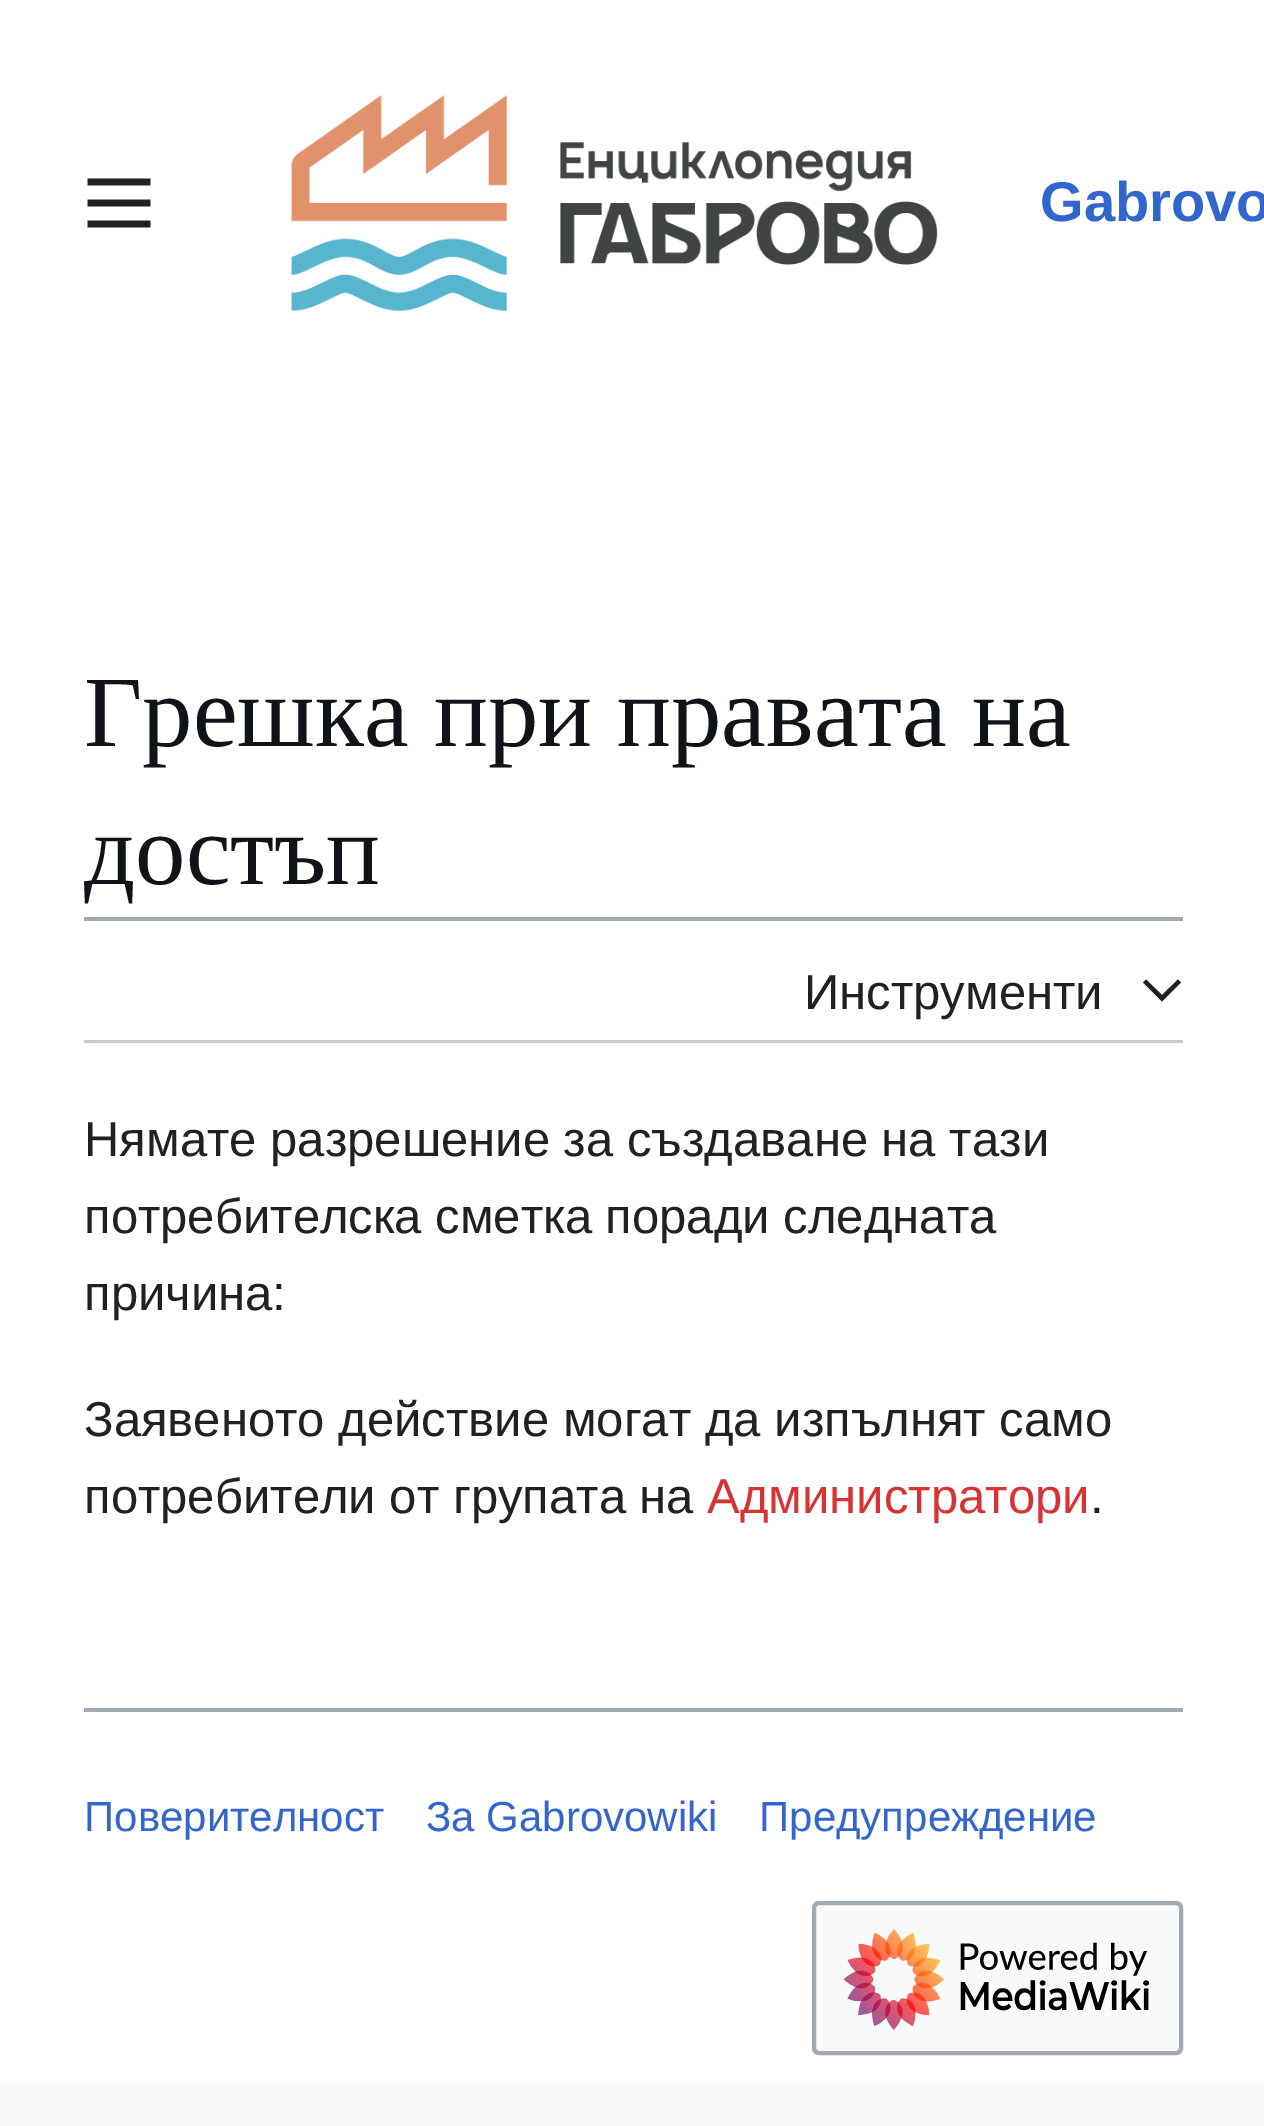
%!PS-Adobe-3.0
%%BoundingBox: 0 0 1264 2126
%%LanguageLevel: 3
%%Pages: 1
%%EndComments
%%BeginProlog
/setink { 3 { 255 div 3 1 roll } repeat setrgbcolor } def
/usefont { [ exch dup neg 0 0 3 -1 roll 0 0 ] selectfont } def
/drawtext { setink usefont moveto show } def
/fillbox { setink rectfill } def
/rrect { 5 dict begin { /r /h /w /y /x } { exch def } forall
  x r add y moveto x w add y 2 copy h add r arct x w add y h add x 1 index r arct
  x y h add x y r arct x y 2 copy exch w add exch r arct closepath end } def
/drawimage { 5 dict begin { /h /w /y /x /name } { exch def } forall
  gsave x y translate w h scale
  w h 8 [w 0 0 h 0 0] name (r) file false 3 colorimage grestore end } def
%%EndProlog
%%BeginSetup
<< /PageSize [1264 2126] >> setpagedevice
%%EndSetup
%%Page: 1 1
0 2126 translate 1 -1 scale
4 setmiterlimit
0 0 1264 2126 248 249 250 fillbox
0 0 1264 2083 255 255 255 fillbox
(assets/img1.rgb) 87 178 64 50 drawimage
(assets/img2.rgb) 291 95 647 217 drawimage
(Gabrovo) 1040 221 /LiberationSans-Bold 56 51 102 204 drawtext
(Грешка при правата на) 84 746 /LiberationSerif-Regular 100.75 16 20 24 drawtext
(достъп) 84 884 /LiberationSerif-Regular 100.75 16 20 24 drawtext
84 917 1099 4 162 169 177 fillbox
84 1040 1099 3 200 204 209 fillbox
(Инструменти) 804 1009 /LiberationSans-Regular 49 32 33 34 drawtext
1178 979.5 moveto 1162 995 lineto 1146 979.5 lineto 1143 982.5 lineto 1162 1001.5 lineto 1181 982.5 lineto closepath fill
(Нямате разрешение за създаване на тази) 84 1156 /LiberationSans-Regular 49 32 33 34 drawtext
(потребителска сметка поради следната) 84 1233 /LiberationSans-Regular 49 32 33 34 drawtext
(причина:) 84 1310 /LiberationSans-Regular 49 32 33 34 drawtext
(Заявеното действие могат да изпълнят само) 84 1436 /LiberationSans-Regular 49 32 33 34 drawtext
(потребители от групата на) 84 1513 /LiberationSans-Regular 49 32 33 34 drawtext
(Администратори) 707 1513 /LiberationSans-Regular 49 215 51 51 drawtext
(.) 1090 1513 /LiberationSans-Regular 49 32 33 34 drawtext
84 1708 1099 4 162 169 177 fillbox
(Поверителност) 84 1831 /LiberationSans-Regular 42 51 102 204 drawtext
(За Gabrovowiki) 426 1831 /LiberationSans-Regular 42 51 102 204 drawtext
(Предупреждение) 759 1831 /LiberationSans-Regular 42 51 102 204 drawtext
248 249 250 setink
814 1903 367 150 5 rrect gsave fill grestore
162 169 177 setink
4 setlinewidth
stroke
(assets/img3.rgb) 844 1929 305 101 drawimage
showpage
%%EOF
